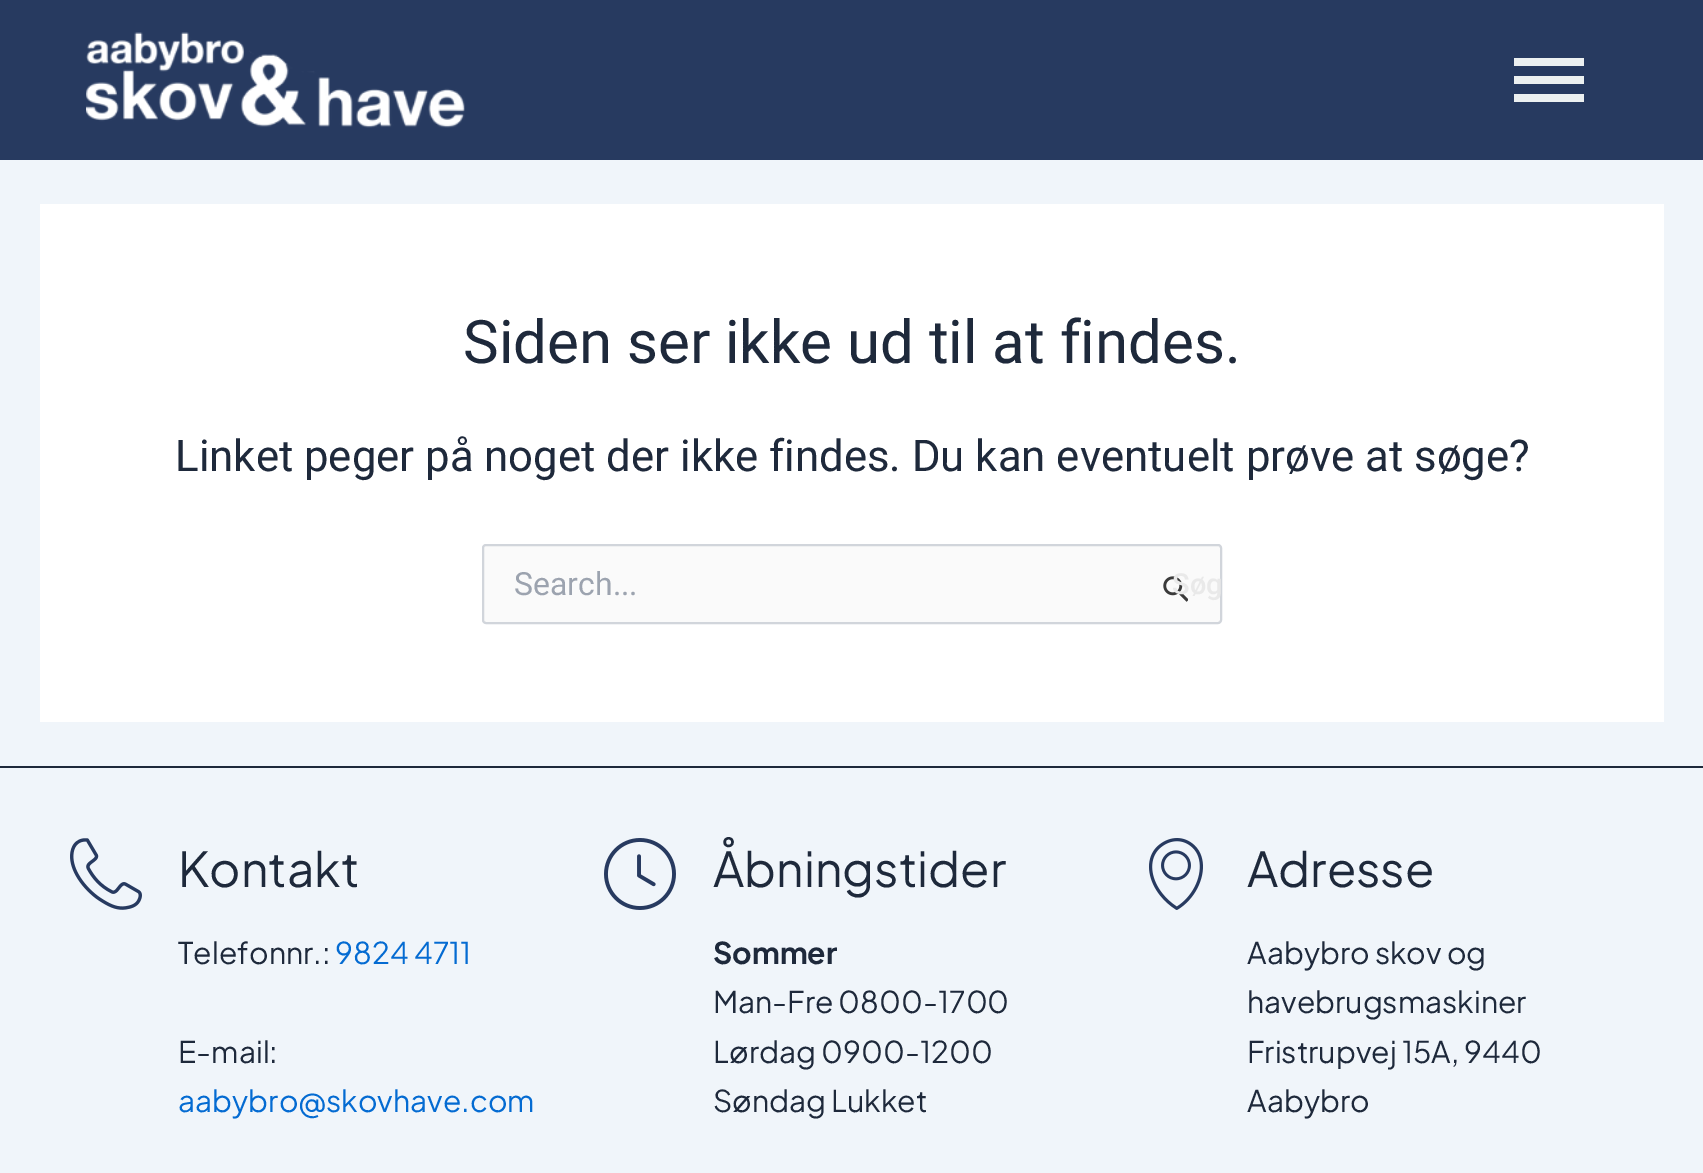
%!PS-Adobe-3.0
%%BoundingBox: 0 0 1703 1173
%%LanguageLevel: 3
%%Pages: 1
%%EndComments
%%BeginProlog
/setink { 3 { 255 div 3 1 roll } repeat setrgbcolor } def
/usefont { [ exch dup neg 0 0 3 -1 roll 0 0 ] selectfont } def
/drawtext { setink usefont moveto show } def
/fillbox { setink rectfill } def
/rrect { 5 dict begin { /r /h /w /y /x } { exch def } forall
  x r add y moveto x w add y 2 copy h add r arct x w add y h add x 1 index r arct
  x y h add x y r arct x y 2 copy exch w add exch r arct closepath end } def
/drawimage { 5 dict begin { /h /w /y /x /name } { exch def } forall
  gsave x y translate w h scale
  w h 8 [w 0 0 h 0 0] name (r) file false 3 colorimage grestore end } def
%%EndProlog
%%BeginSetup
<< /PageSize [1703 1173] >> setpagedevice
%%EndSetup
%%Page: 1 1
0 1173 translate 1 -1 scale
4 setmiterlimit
0 0 1703 1173 240 245 250 fillbox
0 0 1703 160 39 58 96 fillbox
(assets/img1.rgb) 86 32 379 96 drawimage
1514 58 70 8 236 240 241 fillbox
1514 76 70 8 236 240 241 fillbox
1514 94 70 8 236 240 241 fillbox
40 204 1624 518 255 255 255 fillbox
(Siden ser ikke ud til at findes.) 463 363 /Roboto-Regular 60 30 41 59 drawtext
(Linket peger på noget der ikke findes. Du kan eventuelt prøve at søge?) 175 471 /Roboto-Regular 43.75 30 41 59 drawtext
250 250 250 setink
483 545 738 78 3 rrect gsave fill grestore
209 213 219 setink
2 setlinewidth
stroke
(Search...) 514 595 /Roboto-Regular 32 156 163 175 drawtext
(assets/img2.rgb) 1163 576 25 26 drawimage
(Søg) 1172 594 /Roboto-Medium 29 233 233 233 drawtext
0 766 1703 2 30 41 59 fillbox
(assets/img3.rgb) 70 838 72 72 drawimage
(Kontakt) 178 887 /PlusJakartaSans-Regular 48 30 41 59 drawtext
(Telefonnr.:) 178 964 /PlusJakartaSans-Regular 30 30 41 59 drawtext
(9824 4711) 335 964 /PlusJakartaSans-Regular 30 4 107 210 drawtext
(E-mail:) 178 1063 /PlusJakartaSans-Regular 30 30 41 59 drawtext
(aabybro@skovhave.com) 178 1112 /PlusJakartaSans-Regular 30 4 107 210 drawtext
(assets/img4.rgb) 604 838 72 72 drawimage
(Åbningstider) 713 887 /PlusJakartaSans-Regular 48 30 41 59 drawtext
(Sommer) 713 964 /PlusJakartaSans-Bold 30 30 41 59 drawtext
(Man-Fre 0800-1700) 713 1013 /PlusJakartaSans-Regular 30 30 41 59 drawtext
(Lørdag 0900-1200) 713 1063 /PlusJakartaSans-Regular 30 30 41 59 drawtext
(Søndag Lukket) 713 1112 /PlusJakartaSans-Regular 30 30 41 59 drawtext
(assets/img5.rgb) 1149 838 54 72 drawimage
(Adresse) 1247 887 /PlusJakartaSans-Regular 48 30 41 59 drawtext
(Aabybro skov og) 1247 964 /PlusJakartaSans-Regular 30 30 41 59 drawtext
(havebrugsmaskiner) 1247 1013 /PlusJakartaSans-Regular 30 30 41 59 drawtext
(Fristrupvej 15A, 9440) 1247 1063 /PlusJakartaSans-Regular 30 30 41 59 drawtext
(Aabybro) 1247 1112 /PlusJakartaSans-Regular 30 30 41 59 drawtext
showpage
%%EOF
